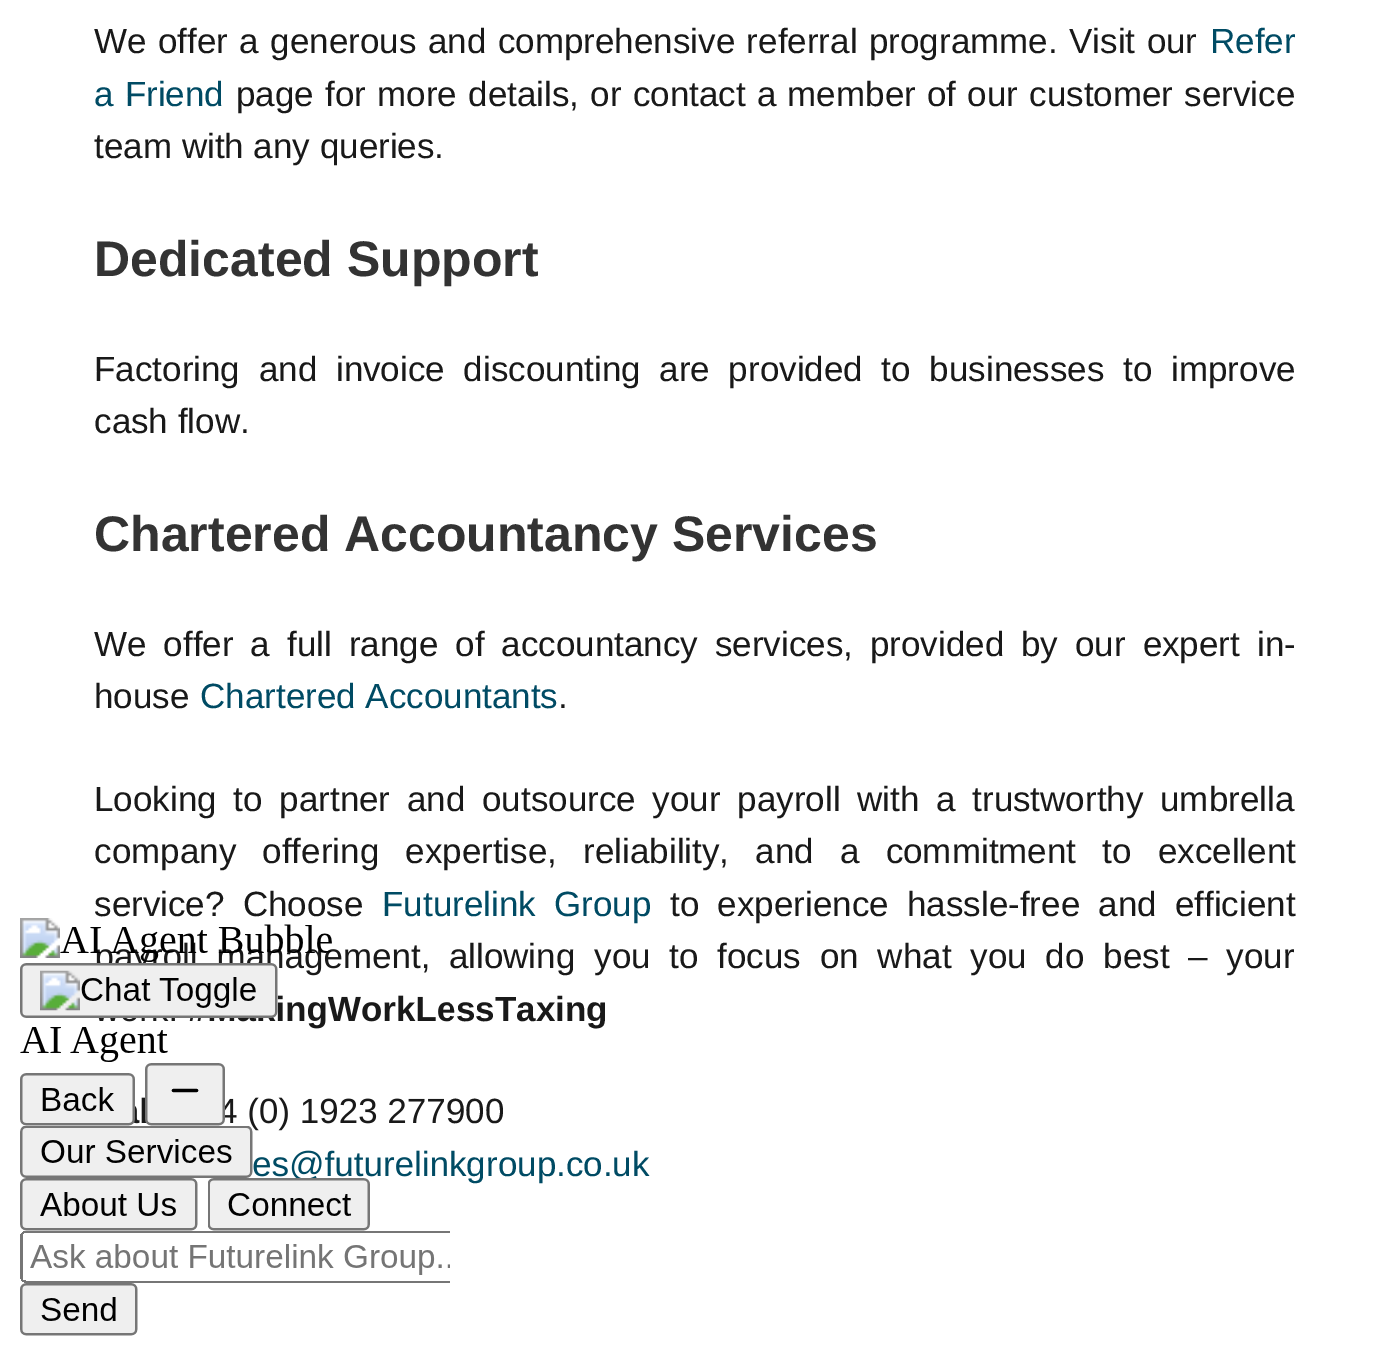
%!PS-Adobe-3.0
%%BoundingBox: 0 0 1388 1347
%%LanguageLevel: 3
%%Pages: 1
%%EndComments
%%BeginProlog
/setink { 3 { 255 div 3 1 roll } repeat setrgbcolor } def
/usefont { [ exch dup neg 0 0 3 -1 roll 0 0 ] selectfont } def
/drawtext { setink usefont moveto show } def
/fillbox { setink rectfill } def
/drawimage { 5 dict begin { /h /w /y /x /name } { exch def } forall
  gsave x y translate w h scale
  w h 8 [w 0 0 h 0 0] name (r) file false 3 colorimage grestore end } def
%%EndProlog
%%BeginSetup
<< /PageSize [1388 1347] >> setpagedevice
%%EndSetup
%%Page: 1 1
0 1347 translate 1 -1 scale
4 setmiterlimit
0 0 1388 1347 255 255 255 fillbox
/LiberationSans-Regular 35 usefont
25 25 25 setink
94 53 moveto 1.75 0 32 (We offer a generous and comprehensive referral programme. Visit our) widthshow
(Refer) 1210 53 /LiberationSans-Regular 35 0 75 100 drawtext
94 106 moveto 1.5 0 32 (a Friend) widthshow
25 25 25 setink
236 106 moveto 1.5 0 32 (page for more details, or contact a member of our customer service) widthshow
(team with any queries.) 94 158 /LiberationSans-Regular 35 25 25 25 drawtext
(Dedicated Support) 94 276 /LiberationSans-Bold 50 51 51 51 drawtext
/LiberationSans-Regular 35 usefont
25 25 25 setink
94 381 moveto 9 0 32 (Factoring and invoice discounting are provided to businesses to improve) widthshow
(cash flow.) 94 433 /LiberationSans-Regular 35 25 25 25 drawtext
(Chartered Accountancy Services) 94 551 /LiberationSans-Bold 50 51 51 51 drawtext
/LiberationSans-Regular 35 usefont
25 25 25 setink
94 656 moveto 7.25 0 32 (We offer a full range of accountancy services, provided by our expert in-) widthshow
(house) 94 708 /LiberationSans-Regular 35 25 25 25 drawtext
(Chartered Accountants) 200 708 /LiberationSans-Regular 35 0 75 100 drawtext
(.) 558 708 /LiberationSans-Regular 35 25 25 25 drawtext
94 811 moveto 7 0 32 (Looking to partner and outsource your payroll with a trustworthy umbrella) widthshow
94 863 moveto 16.5 0 32 (company offering expertise, reliability, and a commitment to excellent) widthshow
94 916 moveto 8.5 0 32 (service? Choose) widthshow
0 75 100 setink
382 916 moveto 8.5 0 32 (Futurelink Group) widthshow
25 25 25 setink
670 916 moveto 8.5 0 32 (to experience hassle-free and efficient) widthshow
94 968 moveto 9.1 0 32 (payroll management, allowing you to focus on what you do best – your) widthshow
(ingWorkLessTaxing) 275 1021 /LiberationSans-Bold 35 25 25 25 drawtext
(l) 139 1123 /LiberationSans-Bold 35 25 25 25 drawtext
(4 \(0\) 1923 277900) 218 1123 /LiberationSans-Regular 35 25 25 25 drawtext
(es@futurelinkgroup.co.uk) 252 1176 /LiberationSans-Regular 35 0 75 100 drawtext
(assets/img1.rgb) 20 918 430 418 drawimage
showpage
%%EOF
